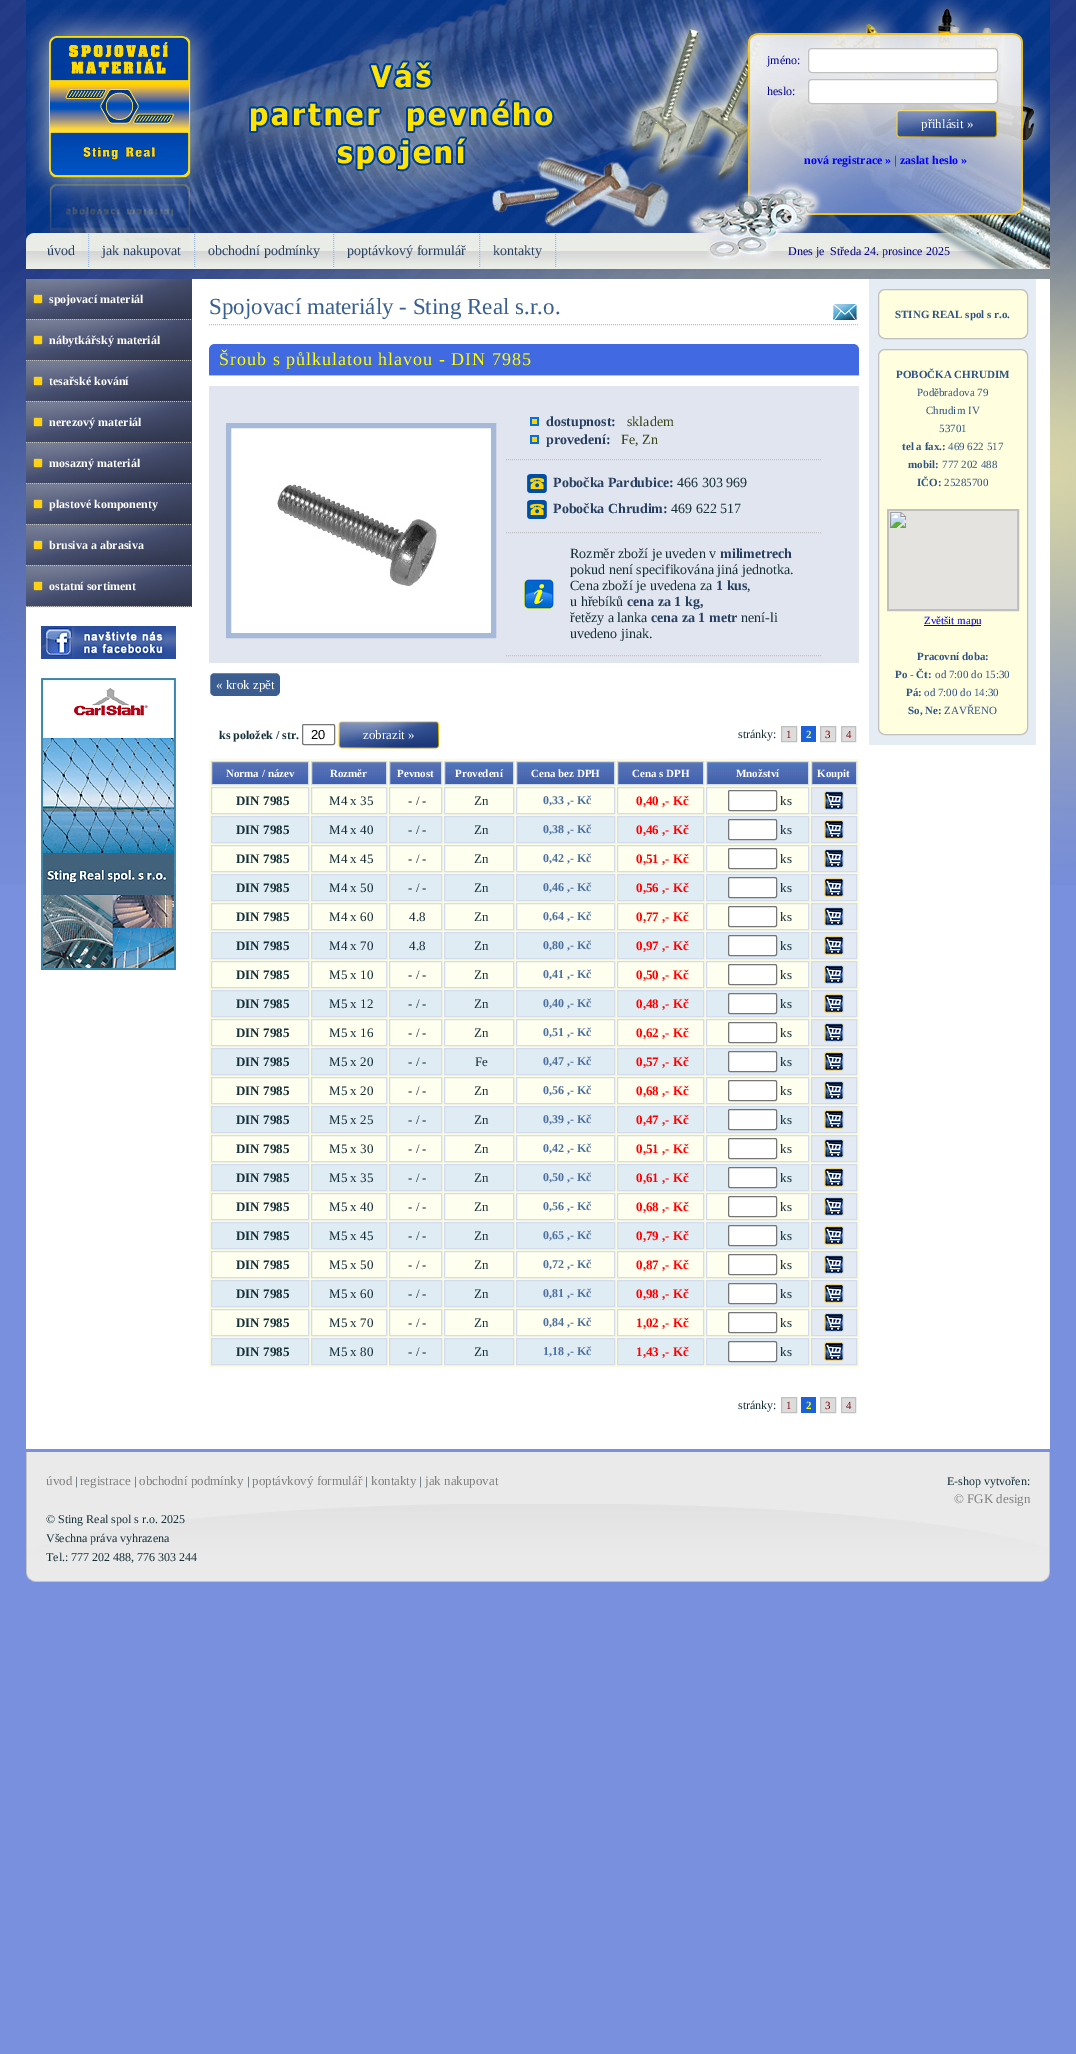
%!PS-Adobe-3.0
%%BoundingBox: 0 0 1076 2054
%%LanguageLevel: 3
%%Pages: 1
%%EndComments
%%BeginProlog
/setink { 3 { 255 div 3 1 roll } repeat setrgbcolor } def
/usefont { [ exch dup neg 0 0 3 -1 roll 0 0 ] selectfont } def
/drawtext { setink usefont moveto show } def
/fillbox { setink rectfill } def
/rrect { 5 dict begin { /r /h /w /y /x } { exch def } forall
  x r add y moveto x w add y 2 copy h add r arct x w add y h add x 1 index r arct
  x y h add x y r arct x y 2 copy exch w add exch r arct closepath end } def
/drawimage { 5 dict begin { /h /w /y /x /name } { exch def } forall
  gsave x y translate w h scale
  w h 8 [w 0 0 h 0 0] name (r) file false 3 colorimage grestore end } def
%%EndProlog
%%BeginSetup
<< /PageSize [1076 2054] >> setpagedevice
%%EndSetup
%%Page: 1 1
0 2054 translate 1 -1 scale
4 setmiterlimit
0 0 1076 2054 120 144 221 fillbox
(assets/img1.rgb) 0 0 1076 885 drawimage
(assets/img2.rgb) 26 0 1024 269 drawimage
(jméno:) 767 64 /LiberationSerif-Regular 12 0 1 149 drawtext
255 255 255 setink
808.5 48.5 189 24 3.5 rrect gsave fill grestore
192 192 192 setink
stroke
(heslo:) 767 95 /LiberationSerif-Regular 12 0 1 149 drawtext
255 255 255 setink
808.5 79.5 189 24 3.5 rrect gsave fill grestore
192 192 192 setink
stroke
(assets/img3.rgb) 896 110 102 28 drawimage
(přihlásit ») 921 128 /LiberationSerif-Regular 13 255 255 255 drawtext
(nová registrace ») 804 164 /LiberationSerif-Bold 12 0 0 255 drawtext
(|) 894 164 /LiberationSerif-Regular 12 0 1 149 drawtext
(zaslat heslo ») 900 164 /LiberationSerif-Bold 12 0 0 255 drawtext
159 183 217 setink
[1 1] 0 setdash
88.5 234 moveto 88.5 267 lineto stroke
(úvod) 47 255 /LiberationSerif-Regular 14 39 64 97 drawtext
159 183 217 setink
194.5 234 moveto 194.5 267 lineto stroke
(jak nakupovat) 102 255 /LiberationSerif-Regular 14 39 64 97 drawtext
159 183 217 setink
333.5 234 moveto 333.5 267 lineto stroke
(obchodní podmínky) 208 255 /LiberationSerif-Regular 14 39 64 97 drawtext
159 183 217 setink
479.5 234 moveto 479.5 267 lineto stroke
(poptávkový formulář) 347 255 /LiberationSerif-Regular 14 39 64 97 drawtext
159 183 217 setink
555.5 234 moveto 555.5 267 lineto stroke
(kontakty) 493 255 /LiberationSerif-Regular 14 39 64 97 drawtext
(Dnes je  Středa 24. prosince 2025) 788 255 /LiberationSerif-Regular 12 0 0 128 drawtext
26 279 1024 1170 255 255 255 fillbox
(assets/img4.rgb) 26 279 166 41 drawimage
192 192 192 setink
26 319.5 moveto 192 319.5 lineto stroke
(spojovací materiál) 49 303 /LiberationSerif-Bold 12 255 255 255 drawtext
(assets/img4.rgb) 26 320 166 41 drawimage
192 192 192 setink
26 360.5 moveto 192 360.5 lineto stroke
(nábytkářský materiál) 49 344 /LiberationSerif-Bold 12 255 255 255 drawtext
(assets/img4.rgb) 26 361 166 41 drawimage
192 192 192 setink
26 401.5 moveto 192 401.5 lineto stroke
(tesařské kování) 49 385 /LiberationSerif-Bold 12 255 255 255 drawtext
(assets/img4.rgb) 26 402 166 41 drawimage
192 192 192 setink
26 442.5 moveto 192 442.5 lineto stroke
(nerezový materiál) 49 426 /LiberationSerif-Bold 12 255 255 255 drawtext
(assets/img4.rgb) 26 443 166 41 drawimage
192 192 192 setink
26 483.5 moveto 192 483.5 lineto stroke
(mosazný materiál) 49 467 /LiberationSerif-Bold 12 255 255 255 drawtext
(assets/img4.rgb) 26 484 166 41 drawimage
192 192 192 setink
26 524.5 moveto 192 524.5 lineto stroke
(plastové komponenty) 49 508 /LiberationSerif-Bold 12 255 255 255 drawtext
(assets/img4.rgb) 26 525 166 41 drawimage
192 192 192 setink
26 565.5 moveto 192 565.5 lineto stroke
(brusiva a abrasiva) 49 549 /LiberationSerif-Bold 12 255 255 255 drawtext
(assets/img4.rgb) 26 566 166 41 drawimage
192 192 192 setink
26 606.5 moveto 192 606.5 lineto stroke
(ostatní sortiment) 49 590 /LiberationSerif-Bold 12 255 255 255 drawtext
(assets/img5.rgb) 41 626 135 33 drawimage
(assets/img6.rgb) 41 678 135 292 drawimage
192 192 192 setink
209 324.5 moveto 859 324.5 lineto stroke
(Spojovací materiály - Sting Real s.r.o.) 209 314 /LiberationSerif-Regular 23 56 95 146 drawtext
(assets/img7.rgb) 833 304 24 16 drawimage
65 105 225 setink
215 344 moveto 853 344 lineto 856.5 344 859 346.5 859 350 curveto 859 376 lineto 209 376 lineto 209 350 lineto 209 346.5 211.5 344 215 344 curveto closepath fill
209 375 650 1 192 192 192 fillbox
/LiberationSerif-Regular 18 usefont
255 255 0 setink
219 365 moveto 1 0 (Šroub s půlkulatou hlavou - DIN 7985) ashow
209 386 650 277 225 229 239 fillbox
255 255 255 setink
228.5 425.5 moveto 493.5 425.5 lineto 493.5 635.5 lineto 228.5 635.5 lineto closepath gsave fill grestore
166 185 216 setink
5 setlinewidth
[] 0 setdash
stroke
(assets/img8.rgb) 277 483 160 104 drawimage
192 192 192 setink
1 setlinewidth
[1 1] 0 setdash
506 459.5 moveto 821 459.5 lineto stroke
(assets/img9.rgb) 530 417 9 9 drawimage
(dostupnost:) 546 426 /LiberationSerif-Bold 14 39 64 97 drawtext
(skladem) 627 426 /LiberationSerif-Regular 14 55 70 23 drawtext
(assets/img9.rgb) 530 435 9 9 drawimage
(provedení:) 546 444 /LiberationSerif-Bold 14 39 64 97 drawtext
(Fe, Zn) 621 444 /LiberationSerif-Regular 14 55 70 23 drawtext
192 192 192 setink
506 532.5 moveto 821 532.5 lineto stroke
(assets/img10.rgb) 527 474 20 19 drawimage
(Pobočka Pardubice:) 553 487 /LiberationSerif-Bold 14 39 64 97 drawtext
(466 303 969) 677 487 /LiberationSerif-Regular 14 20 48 57 drawtext
(assets/img10.rgb) 527 500 20 19 drawimage
(Pobočka Chrudim:) 553 513 /LiberationSerif-Bold 14 39 64 97 drawtext
(469 622 517) 671 513 /LiberationSerif-Regular 14 20 48 57 drawtext
192 192 192 setink
506 655.5 moveto 821 655.5 lineto stroke
(assets/img11.rgb) 524 579 30 30 drawimage
(Rozměr zboží je uveden v) 570 558 /LiberationSerif-Regular 14 20 48 57 drawtext
(milimetrech) 720 558 /LiberationSerif-Bold 14 39 64 97 drawtext
(pokud není specifikována jiná jednotka.) 570 574 /LiberationSerif-Regular 14 20 48 57 drawtext
(Cena zboží je uvedena za) 570 590 /LiberationSerif-Regular 14 20 48 57 drawtext
(1 kus) 716 590 /LiberationSerif-Bold 14 39 64 97 drawtext
(,) 747 590 /LiberationSerif-Regular 14 20 48 57 drawtext
(u hřebíků) 570 606 /LiberationSerif-Regular 14 20 48 57 drawtext
(cena za 1 kg,) 627 606 /LiberationSerif-Bold 14 39 64 97 drawtext
(řetězy a lanka) 570 622 /LiberationSerif-Regular 14 20 48 57 drawtext
(cena za 1 metr) 651 622 /LiberationSerif-Bold 14 39 64 97 drawtext
(není-li) 741 622 /LiberationSerif-Regular 14 20 48 57 drawtext
(uvedeno jinak.) 570 638 /LiberationSerif-Regular 14 20 48 57 drawtext
59 93 143 setink
209.5 672.5 71 24 4.5 rrect gsave fill grestore
255 255 255 setink
[] 0 setdash
stroke
(« krok zpět) 216 689 /LiberationSerif-Regular 13 255 255 255 drawtext
(ks položek / str.) 219 739 /LiberationSerif-Bold 12 20 48 57 drawtext
118 118 118 setink
302.5 724.5 32 20 1.5 rrect stroke
(20) 311 739 /LiberationSans-Regular 13 0 0 0 drawtext
(assets/img12.rgb) 338 721 102 28 drawimage
(zobrazit ») 363 739 /LiberationSerif-Regular 13 255 255 255 drawtext
(stránky:) 738 738 /LiberationSerif-Regular 12 20 48 57 drawtext
220 220 220 setink
781.5 726.5 moveto 796.5 726.5 lineto 796.5 741.5 lineto 781.5 741.5 lineto closepath gsave fill grestore
192 192 192 setink
stroke
(1) 786 738 /LiberationSerif-Regular 11 128 0 0 drawtext
801 726 15 16 27 97 222 fillbox
(2) 806 738 /LiberationSerif-Bold 11 255 255 0 drawtext
220 220 220 setink
820.5 726.5 moveto 835.5 726.5 lineto 835.5 741.5 lineto 820.5 741.5 lineto closepath gsave fill grestore
192 192 192 setink
stroke
(3) 825 738 /LiberationSerif-Regular 11 128 0 0 drawtext
220 220 220 setink
841.5 726.5 moveto 855.5 726.5 lineto 855.5 741.5 lineto 841.5 741.5 lineto closepath gsave fill grestore
192 192 192 setink
stroke
(4) 846 738 /LiberationSerif-Regular 11 128 0 0 drawtext
209 759 650 608 250 251 223 fillbox
(assets/img13.rgb) 212 762 96 22 drawimage
211 220 239 setink
211.5 761.5 97 23 rectstroke
(Norma / název) 226 777 /LiberationSerif-Bold 11 255 255 255 drawtext
(assets/img14.rgb) 312 762 74 22 drawimage
211 220 239 setink
311.5 761.5 75 23 rectstroke
(Rozměr) 330 777 /LiberationSerif-Bold 11 255 255 255 drawtext
(assets/img15.rgb) 390 762 51 22 drawimage
211 220 239 setink
389.5 761.5 52 23 rectstroke
(Pevnost) 397 777 /LiberationSerif-Bold 11 255 255 255 drawtext
(assets/img16.rgb) 445 762 68 22 drawimage
211 220 239 setink
444.5 761.5 69 23 rectstroke
(Provedení) 455 777 /LiberationSerif-Bold 11 255 255 255 drawtext
(assets/img17.rgb) 517 762 97 22 drawimage
211 220 239 setink
516.5 761.5 98 23 rectstroke
(Cena bez DPH) 531 777 /LiberationSerif-Bold 11 255 255 255 drawtext
(assets/img18.rgb) 618 762 85 22 drawimage
211 220 239 setink
617.5 761.5 86 23 rectstroke
(Cena s DPH) 632 777 /LiberationSerif-Bold 11 255 255 255 drawtext
(assets/img19.rgb) 707 762 101 22 drawimage
211 220 239 setink
706.5 761.5 102 23 rectstroke
(Množství) 736 777 /LiberationSerif-Bold 11 255 255 255 drawtext
(assets/img20.rgb) 812 762 44 22 drawimage
211 220 239 setink
811.5 761.5 45 23 rectstroke
(Koupit) 817 777 /LiberationSerif-Bold 11 255 255 255 drawtext
255 255 240 setink
211.5 787.5 moveto 308.5 787.5 lineto 308.5 813.5 lineto 211.5 813.5 lineto closepath gsave fill grestore
211 220 239 setink
stroke
(DIN 7985) 236 805 /LiberationSerif-Bold 13 20 48 57 drawtext
255 255 240 setink
311.5 787.5 moveto 386.5 787.5 lineto 386.5 813.5 lineto 311.5 813.5 lineto closepath gsave fill grestore
211 220 239 setink
stroke
(M4 x 35) 329 805 /LiberationSerif-Regular 13 20 48 57 drawtext
255 255 240 setink
389.5 787.5 moveto 441.5 787.5 lineto 441.5 813.5 lineto 389.5 813.5 lineto closepath gsave fill grestore
211 220 239 setink
stroke
(- / -) 408 805 /LiberationSerif-Regular 13 20 48 57 drawtext
255 255 240 setink
444.5 787.5 moveto 513.5 787.5 lineto 513.5 813.5 lineto 444.5 813.5 lineto closepath gsave fill grestore
211 220 239 setink
stroke
(Zn) 474 805 /LiberationSerif-Regular 13 20 48 57 drawtext
255 255 240 setink
516.5 787.5 moveto 614.5 787.5 lineto 614.5 813.5 lineto 516.5 813.5 lineto closepath gsave fill grestore
211 220 239 setink
stroke
(0,33 ,- Kč) 543 804 /LiberationSerif-Bold 12 76 113 160 drawtext
255 255 240 setink
617.5 787.5 moveto 703.5 787.5 lineto 703.5 813.5 lineto 617.5 813.5 lineto closepath gsave fill grestore
211 220 239 setink
stroke
(0,40 ,- Kč) 636 805 /LiberationSerif-Bold 13 255 0 0 drawtext
255 255 240 setink
706.5 787.5 moveto 808.5 787.5 lineto 808.5 813.5 lineto 706.5 813.5 lineto closepath gsave fill grestore
211 220 239 setink
stroke
255 255 255 setink
728.5 790.5 48 20 1.5 rrect gsave fill grestore
118 118 118 setink
stroke
(ks) 780 805 /LiberationSerif-Regular 13 20 48 57 drawtext
228 234 244 setink
811.5 787.5 moveto 856.5 787.5 lineto 856.5 813.5 lineto 811.5 813.5 lineto closepath gsave fill grestore
211 220 239 setink
stroke
(assets/img21.rgb) 824 791 20 19 drawimage
224 236 244 setink
211.5 816.5 moveto 308.5 816.5 lineto 308.5 842.5 lineto 211.5 842.5 lineto closepath gsave fill grestore
211 220 239 setink
stroke
(DIN 7985) 236 834 /LiberationSerif-Bold 13 20 48 57 drawtext
224 236 244 setink
311.5 816.5 moveto 386.5 816.5 lineto 386.5 842.5 lineto 311.5 842.5 lineto closepath gsave fill grestore
211 220 239 setink
stroke
(M4 x 40) 329 834 /LiberationSerif-Regular 13 20 48 57 drawtext
224 236 244 setink
389.5 816.5 moveto 441.5 816.5 lineto 441.5 842.5 lineto 389.5 842.5 lineto closepath gsave fill grestore
211 220 239 setink
stroke
(- / -) 408 834 /LiberationSerif-Regular 13 20 48 57 drawtext
224 236 244 setink
444.5 816.5 moveto 513.5 816.5 lineto 513.5 842.5 lineto 444.5 842.5 lineto closepath gsave fill grestore
211 220 239 setink
stroke
(Zn) 474 834 /LiberationSerif-Regular 13 20 48 57 drawtext
224 236 244 setink
516.5 816.5 moveto 614.5 816.5 lineto 614.5 842.5 lineto 516.5 842.5 lineto closepath gsave fill grestore
211 220 239 setink
stroke
(0,38 ,- Kč) 543 833 /LiberationSerif-Bold 12 76 113 160 drawtext
224 236 244 setink
617.5 816.5 moveto 703.5 816.5 lineto 703.5 842.5 lineto 617.5 842.5 lineto closepath gsave fill grestore
211 220 239 setink
stroke
(0,46 ,- Kč) 636 834 /LiberationSerif-Bold 13 255 0 0 drawtext
224 236 244 setink
706.5 816.5 moveto 808.5 816.5 lineto 808.5 842.5 lineto 706.5 842.5 lineto closepath gsave fill grestore
211 220 239 setink
stroke
255 255 255 setink
728.5 819.5 48 20 1.5 rrect gsave fill grestore
118 118 118 setink
stroke
(ks) 780 834 /LiberationSerif-Regular 13 20 48 57 drawtext
228 234 244 setink
811.5 816.5 moveto 856.5 816.5 lineto 856.5 842.5 lineto 811.5 842.5 lineto closepath gsave fill grestore
211 220 239 setink
stroke
(assets/img21.rgb) 824 820 20 19 drawimage
255 255 240 setink
211.5 845.5 moveto 308.5 845.5 lineto 308.5 871.5 lineto 211.5 871.5 lineto closepath gsave fill grestore
211 220 239 setink
stroke
(DIN 7985) 236 863 /LiberationSerif-Bold 13 20 48 57 drawtext
255 255 240 setink
311.5 845.5 moveto 386.5 845.5 lineto 386.5 871.5 lineto 311.5 871.5 lineto closepath gsave fill grestore
211 220 239 setink
stroke
(M4 x 45) 329 863 /LiberationSerif-Regular 13 20 48 57 drawtext
255 255 240 setink
389.5 845.5 moveto 441.5 845.5 lineto 441.5 871.5 lineto 389.5 871.5 lineto closepath gsave fill grestore
211 220 239 setink
stroke
(- / -) 408 863 /LiberationSerif-Regular 13 20 48 57 drawtext
255 255 240 setink
444.5 845.5 moveto 513.5 845.5 lineto 513.5 871.5 lineto 444.5 871.5 lineto closepath gsave fill grestore
211 220 239 setink
stroke
(Zn) 474 863 /LiberationSerif-Regular 13 20 48 57 drawtext
255 255 240 setink
516.5 845.5 moveto 614.5 845.5 lineto 614.5 871.5 lineto 516.5 871.5 lineto closepath gsave fill grestore
211 220 239 setink
stroke
(0,42 ,- Kč) 543 862 /LiberationSerif-Bold 12 76 113 160 drawtext
255 255 240 setink
617.5 845.5 moveto 703.5 845.5 lineto 703.5 871.5 lineto 617.5 871.5 lineto closepath gsave fill grestore
211 220 239 setink
stroke
(0,51 ,- Kč) 636 863 /LiberationSerif-Bold 13 255 0 0 drawtext
255 255 240 setink
706.5 845.5 moveto 808.5 845.5 lineto 808.5 871.5 lineto 706.5 871.5 lineto closepath gsave fill grestore
211 220 239 setink
stroke
255 255 255 setink
728.5 848.5 48 20 1.5 rrect gsave fill grestore
118 118 118 setink
stroke
(ks) 780 863 /LiberationSerif-Regular 13 20 48 57 drawtext
228 234 244 setink
811.5 845.5 moveto 856.5 845.5 lineto 856.5 871.5 lineto 811.5 871.5 lineto closepath gsave fill grestore
211 220 239 setink
stroke
(assets/img21.rgb) 824 849 20 19 drawimage
224 236 244 setink
211.5 874.5 moveto 308.5 874.5 lineto 308.5 900.5 lineto 211.5 900.5 lineto closepath gsave fill grestore
211 220 239 setink
stroke
(DIN 7985) 236 892 /LiberationSerif-Bold 13 20 48 57 drawtext
224 236 244 setink
311.5 874.5 moveto 386.5 874.5 lineto 386.5 900.5 lineto 311.5 900.5 lineto closepath gsave fill grestore
211 220 239 setink
stroke
(M4 x 50) 329 892 /LiberationSerif-Regular 13 20 48 57 drawtext
224 236 244 setink
389.5 874.5 moveto 441.5 874.5 lineto 441.5 900.5 lineto 389.5 900.5 lineto closepath gsave fill grestore
211 220 239 setink
stroke
(- / -) 408 892 /LiberationSerif-Regular 13 20 48 57 drawtext
224 236 244 setink
444.5 874.5 moveto 513.5 874.5 lineto 513.5 900.5 lineto 444.5 900.5 lineto closepath gsave fill grestore
211 220 239 setink
stroke
(Zn) 474 892 /LiberationSerif-Regular 13 20 48 57 drawtext
224 236 244 setink
516.5 874.5 moveto 614.5 874.5 lineto 614.5 900.5 lineto 516.5 900.5 lineto closepath gsave fill grestore
211 220 239 setink
stroke
(0,46 ,- Kč) 543 891 /LiberationSerif-Bold 12 76 113 160 drawtext
224 236 244 setink
617.5 874.5 moveto 703.5 874.5 lineto 703.5 900.5 lineto 617.5 900.5 lineto closepath gsave fill grestore
211 220 239 setink
stroke
(0,56 ,- Kč) 636 892 /LiberationSerif-Bold 13 255 0 0 drawtext
224 236 244 setink
706.5 874.5 moveto 808.5 874.5 lineto 808.5 900.5 lineto 706.5 900.5 lineto closepath gsave fill grestore
211 220 239 setink
stroke
255 255 255 setink
728.5 877.5 48 20 1.5 rrect gsave fill grestore
118 118 118 setink
stroke
(ks) 780 892 /LiberationSerif-Regular 13 20 48 57 drawtext
228 234 244 setink
811.5 874.5 moveto 856.5 874.5 lineto 856.5 900.5 lineto 811.5 900.5 lineto closepath gsave fill grestore
211 220 239 setink
stroke
(assets/img21.rgb) 824 878 20 19 drawimage
255 255 240 setink
211.5 903.5 moveto 308.5 903.5 lineto 308.5 929.5 lineto 211.5 929.5 lineto closepath gsave fill grestore
211 220 239 setink
stroke
(DIN 7985) 236 921 /LiberationSerif-Bold 13 20 48 57 drawtext
255 255 240 setink
311.5 903.5 moveto 386.5 903.5 lineto 386.5 929.5 lineto 311.5 929.5 lineto closepath gsave fill grestore
211 220 239 setink
stroke
(M4 x 60) 329 921 /LiberationSerif-Regular 13 20 48 57 drawtext
255 255 240 setink
389.5 903.5 moveto 441.5 903.5 lineto 441.5 929.5 lineto 389.5 929.5 lineto closepath gsave fill grestore
211 220 239 setink
stroke
(4.8) 409 921 /LiberationSerif-Regular 13 20 48 57 drawtext
255 255 240 setink
444.5 903.5 moveto 513.5 903.5 lineto 513.5 929.5 lineto 444.5 929.5 lineto closepath gsave fill grestore
211 220 239 setink
stroke
(Zn) 474 921 /LiberationSerif-Regular 13 20 48 57 drawtext
255 255 240 setink
516.5 903.5 moveto 614.5 903.5 lineto 614.5 929.5 lineto 516.5 929.5 lineto closepath gsave fill grestore
211 220 239 setink
stroke
(0,64 ,- Kč) 543 920 /LiberationSerif-Bold 12 76 113 160 drawtext
255 255 240 setink
617.5 903.5 moveto 703.5 903.5 lineto 703.5 929.5 lineto 617.5 929.5 lineto closepath gsave fill grestore
211 220 239 setink
stroke
(0,77 ,- Kč) 636 921 /LiberationSerif-Bold 13 255 0 0 drawtext
255 255 240 setink
706.5 903.5 moveto 808.5 903.5 lineto 808.5 929.5 lineto 706.5 929.5 lineto closepath gsave fill grestore
211 220 239 setink
stroke
255 255 255 setink
728.5 906.5 48 20 1.5 rrect gsave fill grestore
118 118 118 setink
stroke
(ks) 780 921 /LiberationSerif-Regular 13 20 48 57 drawtext
228 234 244 setink
811.5 903.5 moveto 856.5 903.5 lineto 856.5 929.5 lineto 811.5 929.5 lineto closepath gsave fill grestore
211 220 239 setink
stroke
(assets/img21.rgb) 824 907 20 19 drawimage
224 236 244 setink
211.5 932.5 moveto 308.5 932.5 lineto 308.5 958.5 lineto 211.5 958.5 lineto closepath gsave fill grestore
211 220 239 setink
stroke
(DIN 7985) 236 950 /LiberationSerif-Bold 13 20 48 57 drawtext
224 236 244 setink
311.5 932.5 moveto 386.5 932.5 lineto 386.5 958.5 lineto 311.5 958.5 lineto closepath gsave fill grestore
211 220 239 setink
stroke
(M4 x 70) 329 950 /LiberationSerif-Regular 13 20 48 57 drawtext
224 236 244 setink
389.5 932.5 moveto 441.5 932.5 lineto 441.5 958.5 lineto 389.5 958.5 lineto closepath gsave fill grestore
211 220 239 setink
stroke
(4.8) 409 950 /LiberationSerif-Regular 13 20 48 57 drawtext
224 236 244 setink
444.5 932.5 moveto 513.5 932.5 lineto 513.5 958.5 lineto 444.5 958.5 lineto closepath gsave fill grestore
211 220 239 setink
stroke
(Zn) 474 950 /LiberationSerif-Regular 13 20 48 57 drawtext
224 236 244 setink
516.5 932.5 moveto 614.5 932.5 lineto 614.5 958.5 lineto 516.5 958.5 lineto closepath gsave fill grestore
211 220 239 setink
stroke
(0,80 ,- Kč) 543 949 /LiberationSerif-Bold 12 76 113 160 drawtext
224 236 244 setink
617.5 932.5 moveto 703.5 932.5 lineto 703.5 958.5 lineto 617.5 958.5 lineto closepath gsave fill grestore
211 220 239 setink
stroke
(0,97 ,- Kč) 636 950 /LiberationSerif-Bold 13 255 0 0 drawtext
224 236 244 setink
706.5 932.5 moveto 808.5 932.5 lineto 808.5 958.5 lineto 706.5 958.5 lineto closepath gsave fill grestore
211 220 239 setink
stroke
255 255 255 setink
728.5 935.5 48 20 1.5 rrect gsave fill grestore
118 118 118 setink
stroke
(ks) 780 950 /LiberationSerif-Regular 13 20 48 57 drawtext
228 234 244 setink
811.5 932.5 moveto 856.5 932.5 lineto 856.5 958.5 lineto 811.5 958.5 lineto closepath gsave fill grestore
211 220 239 setink
stroke
(assets/img21.rgb) 824 936 20 19 drawimage
255 255 240 setink
211.5 961.5 moveto 308.5 961.5 lineto 308.5 987.5 lineto 211.5 987.5 lineto closepath gsave fill grestore
211 220 239 setink
stroke
(DIN 7985) 236 979 /LiberationSerif-Bold 13 20 48 57 drawtext
255 255 240 setink
311.5 961.5 moveto 386.5 961.5 lineto 386.5 987.5 lineto 311.5 987.5 lineto closepath gsave fill grestore
211 220 239 setink
stroke
(M5 x 10) 329 979 /LiberationSerif-Regular 13 20 48 57 drawtext
255 255 240 setink
389.5 961.5 moveto 441.5 961.5 lineto 441.5 987.5 lineto 389.5 987.5 lineto closepath gsave fill grestore
211 220 239 setink
stroke
(- / -) 408 979 /LiberationSerif-Regular 13 20 48 57 drawtext
255 255 240 setink
444.5 961.5 moveto 513.5 961.5 lineto 513.5 987.5 lineto 444.5 987.5 lineto closepath gsave fill grestore
211 220 239 setink
stroke
(Zn) 474 979 /LiberationSerif-Regular 13 20 48 57 drawtext
255 255 240 setink
516.5 961.5 moveto 614.5 961.5 lineto 614.5 987.5 lineto 516.5 987.5 lineto closepath gsave fill grestore
211 220 239 setink
stroke
(0,41 ,- Kč) 543 978 /LiberationSerif-Bold 12 76 113 160 drawtext
255 255 240 setink
617.5 961.5 moveto 703.5 961.5 lineto 703.5 987.5 lineto 617.5 987.5 lineto closepath gsave fill grestore
211 220 239 setink
stroke
(0,50 ,- Kč) 636 979 /LiberationSerif-Bold 13 255 0 0 drawtext
255 255 240 setink
706.5 961.5 moveto 808.5 961.5 lineto 808.5 987.5 lineto 706.5 987.5 lineto closepath gsave fill grestore
211 220 239 setink
stroke
255 255 255 setink
728.5 964.5 48 20 1.5 rrect gsave fill grestore
118 118 118 setink
stroke
(ks) 780 979 /LiberationSerif-Regular 13 20 48 57 drawtext
228 234 244 setink
811.5 961.5 moveto 856.5 961.5 lineto 856.5 987.5 lineto 811.5 987.5 lineto closepath gsave fill grestore
211 220 239 setink
stroke
(assets/img21.rgb) 824 965 20 19 drawimage
224 236 244 setink
211.5 990.5 moveto 308.5 990.5 lineto 308.5 1016.5 lineto 211.5 1016.5 lineto closepath gsave fill grestore
211 220 239 setink
stroke
(DIN 7985) 236 1008 /LiberationSerif-Bold 13 20 48 57 drawtext
224 236 244 setink
311.5 990.5 moveto 386.5 990.5 lineto 386.5 1016.5 lineto 311.5 1016.5 lineto closepath gsave fill grestore
211 220 239 setink
stroke
(M5 x 12) 329 1008 /LiberationSerif-Regular 13 20 48 57 drawtext
224 236 244 setink
389.5 990.5 moveto 441.5 990.5 lineto 441.5 1016.5 lineto 389.5 1016.5 lineto closepath gsave fill grestore
211 220 239 setink
stroke
(- / -) 408 1008 /LiberationSerif-Regular 13 20 48 57 drawtext
224 236 244 setink
444.5 990.5 moveto 513.5 990.5 lineto 513.5 1016.5 lineto 444.5 1016.5 lineto closepath gsave fill grestore
211 220 239 setink
stroke
(Zn) 474 1008 /LiberationSerif-Regular 13 20 48 57 drawtext
224 236 244 setink
516.5 990.5 moveto 614.5 990.5 lineto 614.5 1016.5 lineto 516.5 1016.5 lineto closepath gsave fill grestore
211 220 239 setink
stroke
(0,40 ,- Kč) 543 1007 /LiberationSerif-Bold 12 76 113 160 drawtext
224 236 244 setink
617.5 990.5 moveto 703.5 990.5 lineto 703.5 1016.5 lineto 617.5 1016.5 lineto closepath gsave fill grestore
211 220 239 setink
stroke
(0,48 ,- Kč) 636 1008 /LiberationSerif-Bold 13 255 0 0 drawtext
224 236 244 setink
706.5 990.5 moveto 808.5 990.5 lineto 808.5 1016.5 lineto 706.5 1016.5 lineto closepath gsave fill grestore
211 220 239 setink
stroke
255 255 255 setink
728.5 993.5 48 20 1.5 rrect gsave fill grestore
118 118 118 setink
stroke
(ks) 780 1008 /LiberationSerif-Regular 13 20 48 57 drawtext
228 234 244 setink
811.5 990.5 moveto 856.5 990.5 lineto 856.5 1016.5 lineto 811.5 1016.5 lineto closepath gsave fill grestore
211 220 239 setink
stroke
(assets/img21.rgb) 824 994 20 19 drawimage
255 255 240 setink
211.5 1019.5 moveto 308.5 1019.5 lineto 308.5 1045.5 lineto 211.5 1045.5 lineto closepath gsave fill grestore
211 220 239 setink
stroke
(DIN 7985) 236 1037 /LiberationSerif-Bold 13 20 48 57 drawtext
255 255 240 setink
311.5 1019.5 moveto 386.5 1019.5 lineto 386.5 1045.5 lineto 311.5 1045.5 lineto closepath gsave fill grestore
211 220 239 setink
stroke
(M5 x 16) 329 1037 /LiberationSerif-Regular 13 20 48 57 drawtext
255 255 240 setink
389.5 1019.5 moveto 441.5 1019.5 lineto 441.5 1045.5 lineto 389.5 1045.5 lineto closepath gsave fill grestore
211 220 239 setink
stroke
(- / -) 408 1037 /LiberationSerif-Regular 13 20 48 57 drawtext
255 255 240 setink
444.5 1019.5 moveto 513.5 1019.5 lineto 513.5 1045.5 lineto 444.5 1045.5 lineto closepath gsave fill grestore
211 220 239 setink
stroke
(Zn) 474 1037 /LiberationSerif-Regular 13 20 48 57 drawtext
255 255 240 setink
516.5 1019.5 moveto 614.5 1019.5 lineto 614.5 1045.5 lineto 516.5 1045.5 lineto closepath gsave fill grestore
211 220 239 setink
stroke
(0,51 ,- Kč) 543 1036 /LiberationSerif-Bold 12 76 113 160 drawtext
255 255 240 setink
617.5 1019.5 moveto 703.5 1019.5 lineto 703.5 1045.5 lineto 617.5 1045.5 lineto closepath gsave fill grestore
211 220 239 setink
stroke
(0,62 ,- Kč) 636 1037 /LiberationSerif-Bold 13 255 0 0 drawtext
255 255 240 setink
706.5 1019.5 moveto 808.5 1019.5 lineto 808.5 1045.5 lineto 706.5 1045.5 lineto closepath gsave fill grestore
211 220 239 setink
stroke
255 255 255 setink
728.5 1022.5 48 20 1.5 rrect gsave fill grestore
118 118 118 setink
stroke
(ks) 780 1037 /LiberationSerif-Regular 13 20 48 57 drawtext
228 234 244 setink
811.5 1019.5 moveto 856.5 1019.5 lineto 856.5 1045.5 lineto 811.5 1045.5 lineto closepath gsave fill grestore
211 220 239 setink
stroke
(assets/img21.rgb) 824 1023 20 19 drawimage
224 236 244 setink
211.5 1048.5 moveto 308.5 1048.5 lineto 308.5 1074.5 lineto 211.5 1074.5 lineto closepath gsave fill grestore
211 220 239 setink
stroke
(DIN 7985) 236 1066 /LiberationSerif-Bold 13 20 48 57 drawtext
224 236 244 setink
311.5 1048.5 moveto 386.5 1048.5 lineto 386.5 1074.5 lineto 311.5 1074.5 lineto closepath gsave fill grestore
211 220 239 setink
stroke
(M5 x 20) 329 1066 /LiberationSerif-Regular 13 20 48 57 drawtext
224 236 244 setink
389.5 1048.5 moveto 441.5 1048.5 lineto 441.5 1074.5 lineto 389.5 1074.5 lineto closepath gsave fill grestore
211 220 239 setink
stroke
(- / -) 408 1066 /LiberationSerif-Regular 13 20 48 57 drawtext
224 236 244 setink
444.5 1048.5 moveto 513.5 1048.5 lineto 513.5 1074.5 lineto 444.5 1074.5 lineto closepath gsave fill grestore
211 220 239 setink
stroke
(Fe) 475 1066 /LiberationSerif-Regular 13 20 48 57 drawtext
224 236 244 setink
516.5 1048.5 moveto 614.5 1048.5 lineto 614.5 1074.5 lineto 516.5 1074.5 lineto closepath gsave fill grestore
211 220 239 setink
stroke
(0,47 ,- Kč) 543 1065 /LiberationSerif-Bold 12 76 113 160 drawtext
224 236 244 setink
617.5 1048.5 moveto 703.5 1048.5 lineto 703.5 1074.5 lineto 617.5 1074.5 lineto closepath gsave fill grestore
211 220 239 setink
stroke
(0,57 ,- Kč) 636 1066 /LiberationSerif-Bold 13 255 0 0 drawtext
224 236 244 setink
706.5 1048.5 moveto 808.5 1048.5 lineto 808.5 1074.5 lineto 706.5 1074.5 lineto closepath gsave fill grestore
211 220 239 setink
stroke
255 255 255 setink
728.5 1051.5 48 20 1.5 rrect gsave fill grestore
118 118 118 setink
stroke
(ks) 780 1066 /LiberationSerif-Regular 13 20 48 57 drawtext
228 234 244 setink
811.5 1048.5 moveto 856.5 1048.5 lineto 856.5 1074.5 lineto 811.5 1074.5 lineto closepath gsave fill grestore
211 220 239 setink
stroke
(assets/img21.rgb) 824 1052 20 19 drawimage
255 255 240 setink
211.5 1077.5 moveto 308.5 1077.5 lineto 308.5 1103.5 lineto 211.5 1103.5 lineto closepath gsave fill grestore
211 220 239 setink
stroke
(DIN 7985) 236 1095 /LiberationSerif-Bold 13 20 48 57 drawtext
255 255 240 setink
311.5 1077.5 moveto 386.5 1077.5 lineto 386.5 1103.5 lineto 311.5 1103.5 lineto closepath gsave fill grestore
211 220 239 setink
stroke
(M5 x 20) 329 1095 /LiberationSerif-Regular 13 20 48 57 drawtext
255 255 240 setink
389.5 1077.5 moveto 441.5 1077.5 lineto 441.5 1103.5 lineto 389.5 1103.5 lineto closepath gsave fill grestore
211 220 239 setink
stroke
(- / -) 408 1095 /LiberationSerif-Regular 13 20 48 57 drawtext
255 255 240 setink
444.5 1077.5 moveto 513.5 1077.5 lineto 513.5 1103.5 lineto 444.5 1103.5 lineto closepath gsave fill grestore
211 220 239 setink
stroke
(Zn) 474 1095 /LiberationSerif-Regular 13 20 48 57 drawtext
255 255 240 setink
516.5 1077.5 moveto 614.5 1077.5 lineto 614.5 1103.5 lineto 516.5 1103.5 lineto closepath gsave fill grestore
211 220 239 setink
stroke
(0,56 ,- Kč) 543 1094 /LiberationSerif-Bold 12 76 113 160 drawtext
255 255 240 setink
617.5 1077.5 moveto 703.5 1077.5 lineto 703.5 1103.5 lineto 617.5 1103.5 lineto closepath gsave fill grestore
211 220 239 setink
stroke
(0,68 ,- Kč) 636 1095 /LiberationSerif-Bold 13 255 0 0 drawtext
255 255 240 setink
706.5 1077.5 moveto 808.5 1077.5 lineto 808.5 1103.5 lineto 706.5 1103.5 lineto closepath gsave fill grestore
211 220 239 setink
stroke
255 255 255 setink
728.5 1080.5 48 20 1.5 rrect gsave fill grestore
118 118 118 setink
stroke
(ks) 780 1095 /LiberationSerif-Regular 13 20 48 57 drawtext
228 234 244 setink
811.5 1077.5 moveto 856.5 1077.5 lineto 856.5 1103.5 lineto 811.5 1103.5 lineto closepath gsave fill grestore
211 220 239 setink
stroke
(assets/img21.rgb) 824 1081 20 19 drawimage
224 236 244 setink
211.5 1106.5 moveto 308.5 1106.5 lineto 308.5 1132.5 lineto 211.5 1132.5 lineto closepath gsave fill grestore
211 220 239 setink
stroke
(DIN 7985) 236 1124 /LiberationSerif-Bold 13 20 48 57 drawtext
224 236 244 setink
311.5 1106.5 moveto 386.5 1106.5 lineto 386.5 1132.5 lineto 311.5 1132.5 lineto closepath gsave fill grestore
211 220 239 setink
stroke
(M5 x 25) 329 1124 /LiberationSerif-Regular 13 20 48 57 drawtext
224 236 244 setink
389.5 1106.5 moveto 441.5 1106.5 lineto 441.5 1132.5 lineto 389.5 1132.5 lineto closepath gsave fill grestore
211 220 239 setink
stroke
(- / -) 408 1124 /LiberationSerif-Regular 13 20 48 57 drawtext
224 236 244 setink
444.5 1106.5 moveto 513.5 1106.5 lineto 513.5 1132.5 lineto 444.5 1132.5 lineto closepath gsave fill grestore
211 220 239 setink
stroke
(Zn) 474 1124 /LiberationSerif-Regular 13 20 48 57 drawtext
224 236 244 setink
516.5 1106.5 moveto 614.5 1106.5 lineto 614.5 1132.5 lineto 516.5 1132.5 lineto closepath gsave fill grestore
211 220 239 setink
stroke
(0,39 ,- Kč) 543 1123 /LiberationSerif-Bold 12 76 113 160 drawtext
224 236 244 setink
617.5 1106.5 moveto 703.5 1106.5 lineto 703.5 1132.5 lineto 617.5 1132.5 lineto closepath gsave fill grestore
211 220 239 setink
stroke
(0,47 ,- Kč) 636 1124 /LiberationSerif-Bold 13 255 0 0 drawtext
224 236 244 setink
706.5 1106.5 moveto 808.5 1106.5 lineto 808.5 1132.5 lineto 706.5 1132.5 lineto closepath gsave fill grestore
211 220 239 setink
stroke
255 255 255 setink
728.5 1109.5 48 20 1.5 rrect gsave fill grestore
118 118 118 setink
stroke
(ks) 780 1124 /LiberationSerif-Regular 13 20 48 57 drawtext
228 234 244 setink
811.5 1106.5 moveto 856.5 1106.5 lineto 856.5 1132.5 lineto 811.5 1132.5 lineto closepath gsave fill grestore
211 220 239 setink
stroke
(assets/img21.rgb) 824 1110 20 19 drawimage
255 255 240 setink
211.5 1135.5 moveto 308.5 1135.5 lineto 308.5 1161.5 lineto 211.5 1161.5 lineto closepath gsave fill grestore
211 220 239 setink
stroke
(DIN 7985) 236 1153 /LiberationSerif-Bold 13 20 48 57 drawtext
255 255 240 setink
311.5 1135.5 moveto 386.5 1135.5 lineto 386.5 1161.5 lineto 311.5 1161.5 lineto closepath gsave fill grestore
211 220 239 setink
stroke
(M5 x 30) 329 1153 /LiberationSerif-Regular 13 20 48 57 drawtext
255 255 240 setink
389.5 1135.5 moveto 441.5 1135.5 lineto 441.5 1161.5 lineto 389.5 1161.5 lineto closepath gsave fill grestore
211 220 239 setink
stroke
(- / -) 408 1153 /LiberationSerif-Regular 13 20 48 57 drawtext
255 255 240 setink
444.5 1135.5 moveto 513.5 1135.5 lineto 513.5 1161.5 lineto 444.5 1161.5 lineto closepath gsave fill grestore
211 220 239 setink
stroke
(Zn) 474 1153 /LiberationSerif-Regular 13 20 48 57 drawtext
255 255 240 setink
516.5 1135.5 moveto 614.5 1135.5 lineto 614.5 1161.5 lineto 516.5 1161.5 lineto closepath gsave fill grestore
211 220 239 setink
stroke
(0,42 ,- Kč) 543 1152 /LiberationSerif-Bold 12 76 113 160 drawtext
255 255 240 setink
617.5 1135.5 moveto 703.5 1135.5 lineto 703.5 1161.5 lineto 617.5 1161.5 lineto closepath gsave fill grestore
211 220 239 setink
stroke
(0,51 ,- Kč) 636 1153 /LiberationSerif-Bold 13 255 0 0 drawtext
255 255 240 setink
706.5 1135.5 moveto 808.5 1135.5 lineto 808.5 1161.5 lineto 706.5 1161.5 lineto closepath gsave fill grestore
211 220 239 setink
stroke
255 255 255 setink
728.5 1138.5 48 20 1.5 rrect gsave fill grestore
118 118 118 setink
stroke
(ks) 780 1153 /LiberationSerif-Regular 13 20 48 57 drawtext
228 234 244 setink
811.5 1135.5 moveto 856.5 1135.5 lineto 856.5 1161.5 lineto 811.5 1161.5 lineto closepath gsave fill grestore
211 220 239 setink
stroke
(assets/img21.rgb) 824 1139 20 19 drawimage
224 236 244 setink
211.5 1164.5 moveto 308.5 1164.5 lineto 308.5 1190.5 lineto 211.5 1190.5 lineto closepath gsave fill grestore
211 220 239 setink
stroke
(DIN 7985) 236 1182 /LiberationSerif-Bold 13 20 48 57 drawtext
224 236 244 setink
311.5 1164.5 moveto 386.5 1164.5 lineto 386.5 1190.5 lineto 311.5 1190.5 lineto closepath gsave fill grestore
211 220 239 setink
stroke
(M5 x 35) 329 1182 /LiberationSerif-Regular 13 20 48 57 drawtext
224 236 244 setink
389.5 1164.5 moveto 441.5 1164.5 lineto 441.5 1190.5 lineto 389.5 1190.5 lineto closepath gsave fill grestore
211 220 239 setink
stroke
(- / -) 408 1182 /LiberationSerif-Regular 13 20 48 57 drawtext
224 236 244 setink
444.5 1164.5 moveto 513.5 1164.5 lineto 513.5 1190.5 lineto 444.5 1190.5 lineto closepath gsave fill grestore
211 220 239 setink
stroke
(Zn) 474 1182 /LiberationSerif-Regular 13 20 48 57 drawtext
224 236 244 setink
516.5 1164.5 moveto 614.5 1164.5 lineto 614.5 1190.5 lineto 516.5 1190.5 lineto closepath gsave fill grestore
211 220 239 setink
stroke
(0,50 ,- Kč) 543 1181 /LiberationSerif-Bold 12 76 113 160 drawtext
224 236 244 setink
617.5 1164.5 moveto 703.5 1164.5 lineto 703.5 1190.5 lineto 617.5 1190.5 lineto closepath gsave fill grestore
211 220 239 setink
stroke
(0,61 ,- Kč) 636 1182 /LiberationSerif-Bold 13 255 0 0 drawtext
224 236 244 setink
706.5 1164.5 moveto 808.5 1164.5 lineto 808.5 1190.5 lineto 706.5 1190.5 lineto closepath gsave fill grestore
211 220 239 setink
stroke
255 255 255 setink
728.5 1167.5 48 20 1.5 rrect gsave fill grestore
118 118 118 setink
stroke
(ks) 780 1182 /LiberationSerif-Regular 13 20 48 57 drawtext
228 234 244 setink
811.5 1164.5 moveto 856.5 1164.5 lineto 856.5 1190.5 lineto 811.5 1190.5 lineto closepath gsave fill grestore
211 220 239 setink
stroke
(assets/img21.rgb) 824 1168 20 19 drawimage
255 255 240 setink
211.5 1193.5 moveto 308.5 1193.5 lineto 308.5 1219.5 lineto 211.5 1219.5 lineto closepath gsave fill grestore
211 220 239 setink
stroke
(DIN 7985) 236 1211 /LiberationSerif-Bold 13 20 48 57 drawtext
255 255 240 setink
311.5 1193.5 moveto 386.5 1193.5 lineto 386.5 1219.5 lineto 311.5 1219.5 lineto closepath gsave fill grestore
211 220 239 setink
stroke
(M5 x 40) 329 1211 /LiberationSerif-Regular 13 20 48 57 drawtext
255 255 240 setink
389.5 1193.5 moveto 441.5 1193.5 lineto 441.5 1219.5 lineto 389.5 1219.5 lineto closepath gsave fill grestore
211 220 239 setink
stroke
(- / -) 408 1211 /LiberationSerif-Regular 13 20 48 57 drawtext
255 255 240 setink
444.5 1193.5 moveto 513.5 1193.5 lineto 513.5 1219.5 lineto 444.5 1219.5 lineto closepath gsave fill grestore
211 220 239 setink
stroke
(Zn) 474 1211 /LiberationSerif-Regular 13 20 48 57 drawtext
255 255 240 setink
516.5 1193.5 moveto 614.5 1193.5 lineto 614.5 1219.5 lineto 516.5 1219.5 lineto closepath gsave fill grestore
211 220 239 setink
stroke
(0,56 ,- Kč) 543 1210 /LiberationSerif-Bold 12 76 113 160 drawtext
255 255 240 setink
617.5 1193.5 moveto 703.5 1193.5 lineto 703.5 1219.5 lineto 617.5 1219.5 lineto closepath gsave fill grestore
211 220 239 setink
stroke
(0,68 ,- Kč) 636 1211 /LiberationSerif-Bold 13 255 0 0 drawtext
255 255 240 setink
706.5 1193.5 moveto 808.5 1193.5 lineto 808.5 1219.5 lineto 706.5 1219.5 lineto closepath gsave fill grestore
211 220 239 setink
stroke
255 255 255 setink
728.5 1196.5 48 20 1.5 rrect gsave fill grestore
118 118 118 setink
stroke
(ks) 780 1211 /LiberationSerif-Regular 13 20 48 57 drawtext
228 234 244 setink
811.5 1193.5 moveto 856.5 1193.5 lineto 856.5 1219.5 lineto 811.5 1219.5 lineto closepath gsave fill grestore
211 220 239 setink
stroke
(assets/img21.rgb) 824 1197 20 19 drawimage
224 236 244 setink
211.5 1222.5 moveto 308.5 1222.5 lineto 308.5 1248.5 lineto 211.5 1248.5 lineto closepath gsave fill grestore
211 220 239 setink
stroke
(DIN 7985) 236 1240 /LiberationSerif-Bold 13 20 48 57 drawtext
224 236 244 setink
311.5 1222.5 moveto 386.5 1222.5 lineto 386.5 1248.5 lineto 311.5 1248.5 lineto closepath gsave fill grestore
211 220 239 setink
stroke
(M5 x 45) 329 1240 /LiberationSerif-Regular 13 20 48 57 drawtext
224 236 244 setink
389.5 1222.5 moveto 441.5 1222.5 lineto 441.5 1248.5 lineto 389.5 1248.5 lineto closepath gsave fill grestore
211 220 239 setink
stroke
(- / -) 408 1240 /LiberationSerif-Regular 13 20 48 57 drawtext
224 236 244 setink
444.5 1222.5 moveto 513.5 1222.5 lineto 513.5 1248.5 lineto 444.5 1248.5 lineto closepath gsave fill grestore
211 220 239 setink
stroke
(Zn) 474 1240 /LiberationSerif-Regular 13 20 48 57 drawtext
224 236 244 setink
516.5 1222.5 moveto 614.5 1222.5 lineto 614.5 1248.5 lineto 516.5 1248.5 lineto closepath gsave fill grestore
211 220 239 setink
stroke
(0,65 ,- Kč) 543 1239 /LiberationSerif-Bold 12 76 113 160 drawtext
224 236 244 setink
617.5 1222.5 moveto 703.5 1222.5 lineto 703.5 1248.5 lineto 617.5 1248.5 lineto closepath gsave fill grestore
211 220 239 setink
stroke
(0,79 ,- Kč) 636 1240 /LiberationSerif-Bold 13 255 0 0 drawtext
224 236 244 setink
706.5 1222.5 moveto 808.5 1222.5 lineto 808.5 1248.5 lineto 706.5 1248.5 lineto closepath gsave fill grestore
211 220 239 setink
stroke
255 255 255 setink
728.5 1225.5 48 20 1.5 rrect gsave fill grestore
118 118 118 setink
stroke
(ks) 780 1240 /LiberationSerif-Regular 13 20 48 57 drawtext
228 234 244 setink
811.5 1222.5 moveto 856.5 1222.5 lineto 856.5 1248.5 lineto 811.5 1248.5 lineto closepath gsave fill grestore
211 220 239 setink
stroke
(assets/img21.rgb) 824 1226 20 19 drawimage
255 255 240 setink
211.5 1251.5 moveto 308.5 1251.5 lineto 308.5 1277.5 lineto 211.5 1277.5 lineto closepath gsave fill grestore
211 220 239 setink
stroke
(DIN 7985) 236 1269 /LiberationSerif-Bold 13 20 48 57 drawtext
255 255 240 setink
311.5 1251.5 moveto 386.5 1251.5 lineto 386.5 1277.5 lineto 311.5 1277.5 lineto closepath gsave fill grestore
211 220 239 setink
stroke
(M5 x 50) 329 1269 /LiberationSerif-Regular 13 20 48 57 drawtext
255 255 240 setink
389.5 1251.5 moveto 441.5 1251.5 lineto 441.5 1277.5 lineto 389.5 1277.5 lineto closepath gsave fill grestore
211 220 239 setink
stroke
(- / -) 408 1269 /LiberationSerif-Regular 13 20 48 57 drawtext
255 255 240 setink
444.5 1251.5 moveto 513.5 1251.5 lineto 513.5 1277.5 lineto 444.5 1277.5 lineto closepath gsave fill grestore
211 220 239 setink
stroke
(Zn) 474 1269 /LiberationSerif-Regular 13 20 48 57 drawtext
255 255 240 setink
516.5 1251.5 moveto 614.5 1251.5 lineto 614.5 1277.5 lineto 516.5 1277.5 lineto closepath gsave fill grestore
211 220 239 setink
stroke
(0,72 ,- Kč) 543 1268 /LiberationSerif-Bold 12 76 113 160 drawtext
255 255 240 setink
617.5 1251.5 moveto 703.5 1251.5 lineto 703.5 1277.5 lineto 617.5 1277.5 lineto closepath gsave fill grestore
211 220 239 setink
stroke
(0,87 ,- Kč) 636 1269 /LiberationSerif-Bold 13 255 0 0 drawtext
255 255 240 setink
706.5 1251.5 moveto 808.5 1251.5 lineto 808.5 1277.5 lineto 706.5 1277.5 lineto closepath gsave fill grestore
211 220 239 setink
stroke
255 255 255 setink
728.5 1254.5 48 20 1.5 rrect gsave fill grestore
118 118 118 setink
stroke
(ks) 780 1269 /LiberationSerif-Regular 13 20 48 57 drawtext
228 234 244 setink
811.5 1251.5 moveto 856.5 1251.5 lineto 856.5 1277.5 lineto 811.5 1277.5 lineto closepath gsave fill grestore
211 220 239 setink
stroke
(assets/img21.rgb) 824 1255 20 19 drawimage
224 236 244 setink
211.5 1280.5 moveto 308.5 1280.5 lineto 308.5 1306.5 lineto 211.5 1306.5 lineto closepath gsave fill grestore
211 220 239 setink
stroke
(DIN 7985) 236 1298 /LiberationSerif-Bold 13 20 48 57 drawtext
224 236 244 setink
311.5 1280.5 moveto 386.5 1280.5 lineto 386.5 1306.5 lineto 311.5 1306.5 lineto closepath gsave fill grestore
211 220 239 setink
stroke
(M5 x 60) 329 1298 /LiberationSerif-Regular 13 20 48 57 drawtext
224 236 244 setink
389.5 1280.5 moveto 441.5 1280.5 lineto 441.5 1306.5 lineto 389.5 1306.5 lineto closepath gsave fill grestore
211 220 239 setink
stroke
(- / -) 408 1298 /LiberationSerif-Regular 13 20 48 57 drawtext
224 236 244 setink
444.5 1280.5 moveto 513.5 1280.5 lineto 513.5 1306.5 lineto 444.5 1306.5 lineto closepath gsave fill grestore
211 220 239 setink
stroke
(Zn) 474 1298 /LiberationSerif-Regular 13 20 48 57 drawtext
224 236 244 setink
516.5 1280.5 moveto 614.5 1280.5 lineto 614.5 1306.5 lineto 516.5 1306.5 lineto closepath gsave fill grestore
211 220 239 setink
stroke
(0,81 ,- Kč) 543 1297 /LiberationSerif-Bold 12 76 113 160 drawtext
224 236 244 setink
617.5 1280.5 moveto 703.5 1280.5 lineto 703.5 1306.5 lineto 617.5 1306.5 lineto closepath gsave fill grestore
211 220 239 setink
stroke
(0,98 ,- Kč) 636 1298 /LiberationSerif-Bold 13 255 0 0 drawtext
224 236 244 setink
706.5 1280.5 moveto 808.5 1280.5 lineto 808.5 1306.5 lineto 706.5 1306.5 lineto closepath gsave fill grestore
211 220 239 setink
stroke
255 255 255 setink
728.5 1283.5 48 20 1.5 rrect gsave fill grestore
118 118 118 setink
stroke
(ks) 780 1298 /LiberationSerif-Regular 13 20 48 57 drawtext
228 234 244 setink
811.5 1280.5 moveto 856.5 1280.5 lineto 856.5 1306.5 lineto 811.5 1306.5 lineto closepath gsave fill grestore
211 220 239 setink
stroke
(assets/img21.rgb) 824 1284 20 19 drawimage
255 255 240 setink
211.5 1309.5 moveto 308.5 1309.5 lineto 308.5 1335.5 lineto 211.5 1335.5 lineto closepath gsave fill grestore
211 220 239 setink
stroke
(DIN 7985) 236 1327 /LiberationSerif-Bold 13 20 48 57 drawtext
255 255 240 setink
311.5 1309.5 moveto 386.5 1309.5 lineto 386.5 1335.5 lineto 311.5 1335.5 lineto closepath gsave fill grestore
211 220 239 setink
stroke
(M5 x 70) 329 1327 /LiberationSerif-Regular 13 20 48 57 drawtext
255 255 240 setink
389.5 1309.5 moveto 441.5 1309.5 lineto 441.5 1335.5 lineto 389.5 1335.5 lineto closepath gsave fill grestore
211 220 239 setink
stroke
(- / -) 408 1327 /LiberationSerif-Regular 13 20 48 57 drawtext
255 255 240 setink
444.5 1309.5 moveto 513.5 1309.5 lineto 513.5 1335.5 lineto 444.5 1335.5 lineto closepath gsave fill grestore
211 220 239 setink
stroke
(Zn) 474 1327 /LiberationSerif-Regular 13 20 48 57 drawtext
255 255 240 setink
516.5 1309.5 moveto 614.5 1309.5 lineto 614.5 1335.5 lineto 516.5 1335.5 lineto closepath gsave fill grestore
211 220 239 setink
stroke
(0,84 ,- Kč) 543 1326 /LiberationSerif-Bold 12 76 113 160 drawtext
255 255 240 setink
617.5 1309.5 moveto 703.5 1309.5 lineto 703.5 1335.5 lineto 617.5 1335.5 lineto closepath gsave fill grestore
211 220 239 setink
stroke
(1,02 ,- Kč) 636 1327 /LiberationSerif-Bold 13 255 0 0 drawtext
255 255 240 setink
706.5 1309.5 moveto 808.5 1309.5 lineto 808.5 1335.5 lineto 706.5 1335.5 lineto closepath gsave fill grestore
211 220 239 setink
stroke
255 255 255 setink
728.5 1312.5 48 20 1.5 rrect gsave fill grestore
118 118 118 setink
stroke
(ks) 780 1327 /LiberationSerif-Regular 13 20 48 57 drawtext
228 234 244 setink
811.5 1309.5 moveto 856.5 1309.5 lineto 856.5 1335.5 lineto 811.5 1335.5 lineto closepath gsave fill grestore
211 220 239 setink
stroke
(assets/img21.rgb) 824 1313 20 19 drawimage
224 236 244 setink
211.5 1338.5 moveto 308.5 1338.5 lineto 308.5 1364.5 lineto 211.5 1364.5 lineto closepath gsave fill grestore
211 220 239 setink
stroke
(DIN 7985) 236 1356 /LiberationSerif-Bold 13 20 48 57 drawtext
224 236 244 setink
311.5 1338.5 moveto 386.5 1338.5 lineto 386.5 1364.5 lineto 311.5 1364.5 lineto closepath gsave fill grestore
211 220 239 setink
stroke
(M5 x 80) 329 1356 /LiberationSerif-Regular 13 20 48 57 drawtext
224 236 244 setink
389.5 1338.5 moveto 441.5 1338.5 lineto 441.5 1364.5 lineto 389.5 1364.5 lineto closepath gsave fill grestore
211 220 239 setink
stroke
(- / -) 408 1356 /LiberationSerif-Regular 13 20 48 57 drawtext
224 236 244 setink
444.5 1338.5 moveto 513.5 1338.5 lineto 513.5 1364.5 lineto 444.5 1364.5 lineto closepath gsave fill grestore
211 220 239 setink
stroke
(Zn) 474 1356 /LiberationSerif-Regular 13 20 48 57 drawtext
224 236 244 setink
516.5 1338.5 moveto 614.5 1338.5 lineto 614.5 1364.5 lineto 516.5 1364.5 lineto closepath gsave fill grestore
211 220 239 setink
stroke
(1,18 ,- Kč) 543 1355 /LiberationSerif-Bold 12 76 113 160 drawtext
224 236 244 setink
617.5 1338.5 moveto 703.5 1338.5 lineto 703.5 1364.5 lineto 617.5 1364.5 lineto closepath gsave fill grestore
211 220 239 setink
stroke
(1,43 ,- Kč) 636 1356 /LiberationSerif-Bold 13 255 0 0 drawtext
224 236 244 setink
706.5 1338.5 moveto 808.5 1338.5 lineto 808.5 1364.5 lineto 706.5 1364.5 lineto closepath gsave fill grestore
211 220 239 setink
stroke
255 255 255 setink
728.5 1341.5 48 20 1.5 rrect gsave fill grestore
118 118 118 setink
stroke
(ks) 780 1356 /LiberationSerif-Regular 13 20 48 57 drawtext
228 234 244 setink
811.5 1338.5 moveto 856.5 1338.5 lineto 856.5 1364.5 lineto 811.5 1364.5 lineto closepath gsave fill grestore
211 220 239 setink
stroke
(assets/img21.rgb) 824 1342 20 19 drawimage
(stránky:) 738 1409 /LiberationSerif-Regular 12 20 48 57 drawtext
220 220 220 setink
781.5 1397.5 moveto 796.5 1397.5 lineto 796.5 1412.5 lineto 781.5 1412.5 lineto closepath gsave fill grestore
192 192 192 setink
stroke
(1) 786 1409 /LiberationSerif-Regular 11 128 0 0 drawtext
801 1397 15 16 27 97 222 fillbox
(2) 806 1409 /LiberationSerif-Bold 11 255 255 0 drawtext
220 220 220 setink
820.5 1397.5 moveto 835.5 1397.5 lineto 835.5 1412.5 lineto 820.5 1412.5 lineto closepath gsave fill grestore
192 192 192 setink
stroke
(3) 825 1409 /LiberationSerif-Regular 11 128 0 0 drawtext
220 220 220 setink
841.5 1397.5 moveto 855.5 1397.5 lineto 855.5 1412.5 lineto 841.5 1412.5 lineto closepath gsave fill grestore
192 192 192 setink
stroke
(4) 846 1409 /LiberationSerif-Regular 11 128 0 0 drawtext
869 279 167 466 229 236 244 fillbox
255 255 224 setink
878.5 289.5 149 49 6.5 rrect gsave fill grestore
192 192 192 setink
stroke
(STING REAL spol s r.o.) 895 318 /LiberationSerif-Bold 11 47 84 131 drawtext
255 255 224 setink
878.5 349.5 149 385 6.5 rrect gsave fill grestore
192 192 192 setink
stroke
(POBOČKA CHRUDIM) 896 378 /LiberationSerif-Bold 11 47 84 131 drawtext
(Poděbradova 79) 917 396 /LiberationSerif-Regular 11 47 84 131 drawtext
(Chrudim IV) 926 414 /LiberationSerif-Regular 11 47 84 131 drawtext
(53701) 939 432 /LiberationSerif-Regular 11 47 84 131 drawtext
(tel a fax.:) 902 450 /LiberationSerif-Bold 11 47 84 131 drawtext
(469 622 517) 948 450 /LiberationSerif-Regular 11 47 84 131 drawtext
(mobil:) 908 468 /LiberationSerif-Bold 11 47 84 131 drawtext
(777 202 488) 942 468 /LiberationSerif-Regular 11 47 84 131 drawtext
(IČO:) 917 486 /LiberationSerif-Bold 11 47 84 131 drawtext
(25285700) 944 486 /LiberationSerif-Regular 11 47 84 131 drawtext
192 192 192 setink
887.5 509.5 131 101 rectstroke
(assets/img22.rgb) 888 510 130 100 drawimage
924 625 57 1 0 0 238 fillbox
(Zvětšit mapu) 924 624 /LiberationSerif-Regular 11 0 0 238 drawtext
(Pracovní doba:) 917 660 /LiberationSerif-Bold 11 47 84 131 drawtext
(Po - Čt:) 895 678 /LiberationSerif-Bold 11 47 84 131 drawtext
(od 7:00 do 15:30) 935 678 /LiberationSerif-Regular 11 47 84 131 drawtext
(Pá:) 906 696 /LiberationSerif-Bold 11 47 84 131 drawtext
(od 7:00 do 14:30) 924 696 /LiberationSerif-Regular 11 47 84 131 drawtext
(So, Ne:) 908 714 /LiberationSerif-Bold 11 47 84 131 drawtext
(ZAVŘENO) 944 714 /LiberationSerif-Regular 11 47 84 131 drawtext
(assets/img23.rgb) 26 1452 1024 130 drawimage
(úvod) 46 1485 /LiberationSerif-Regular 13 128 128 128 drawtext
(|) 75 1485 /LiberationSerif-Regular 12 20 48 57 drawtext
(registrace) 80 1485 /LiberationSerif-Regular 13 128 128 128 drawtext
(|) 134 1485 /LiberationSerif-Regular 12 20 48 57 drawtext
(obchodní podmínky) 139 1485 /LiberationSerif-Regular 13 128 128 128 drawtext
(|) 247 1485 /LiberationSerif-Regular 12 20 48 57 drawtext
(poptávkový formulář) 252 1485 /LiberationSerif-Regular 13 128 128 128 drawtext
(|) 365 1485 /LiberationSerif-Regular 12 20 48 57 drawtext
(kontakty) 371 1485 /LiberationSerif-Regular 13 128 128 128 drawtext
(|) 419 1485 /LiberationSerif-Regular 12 20 48 57 drawtext
(jak nakupovat) 425 1485 /LiberationSerif-Regular 13 128 128 128 drawtext
(© Sting Real spol s r.o. 2025) 46 1523 /LiberationSerif-Regular 12 20 48 57 drawtext
(Všechna práva vyhrazena) 46 1542 /LiberationSerif-Regular 12 20 48 57 drawtext
(Tel.: 777 202 488, 776 303 244) 46 1561 /LiberationSerif-Regular 12 20 48 57 drawtext
(E-shop vytvořen:) 947 1485 /LiberationSerif-Regular 12 20 48 57 drawtext
(© FGK design) 954 1503 /LiberationSerif-Regular 13 128 128 128 drawtext
showpage
%%EOF
